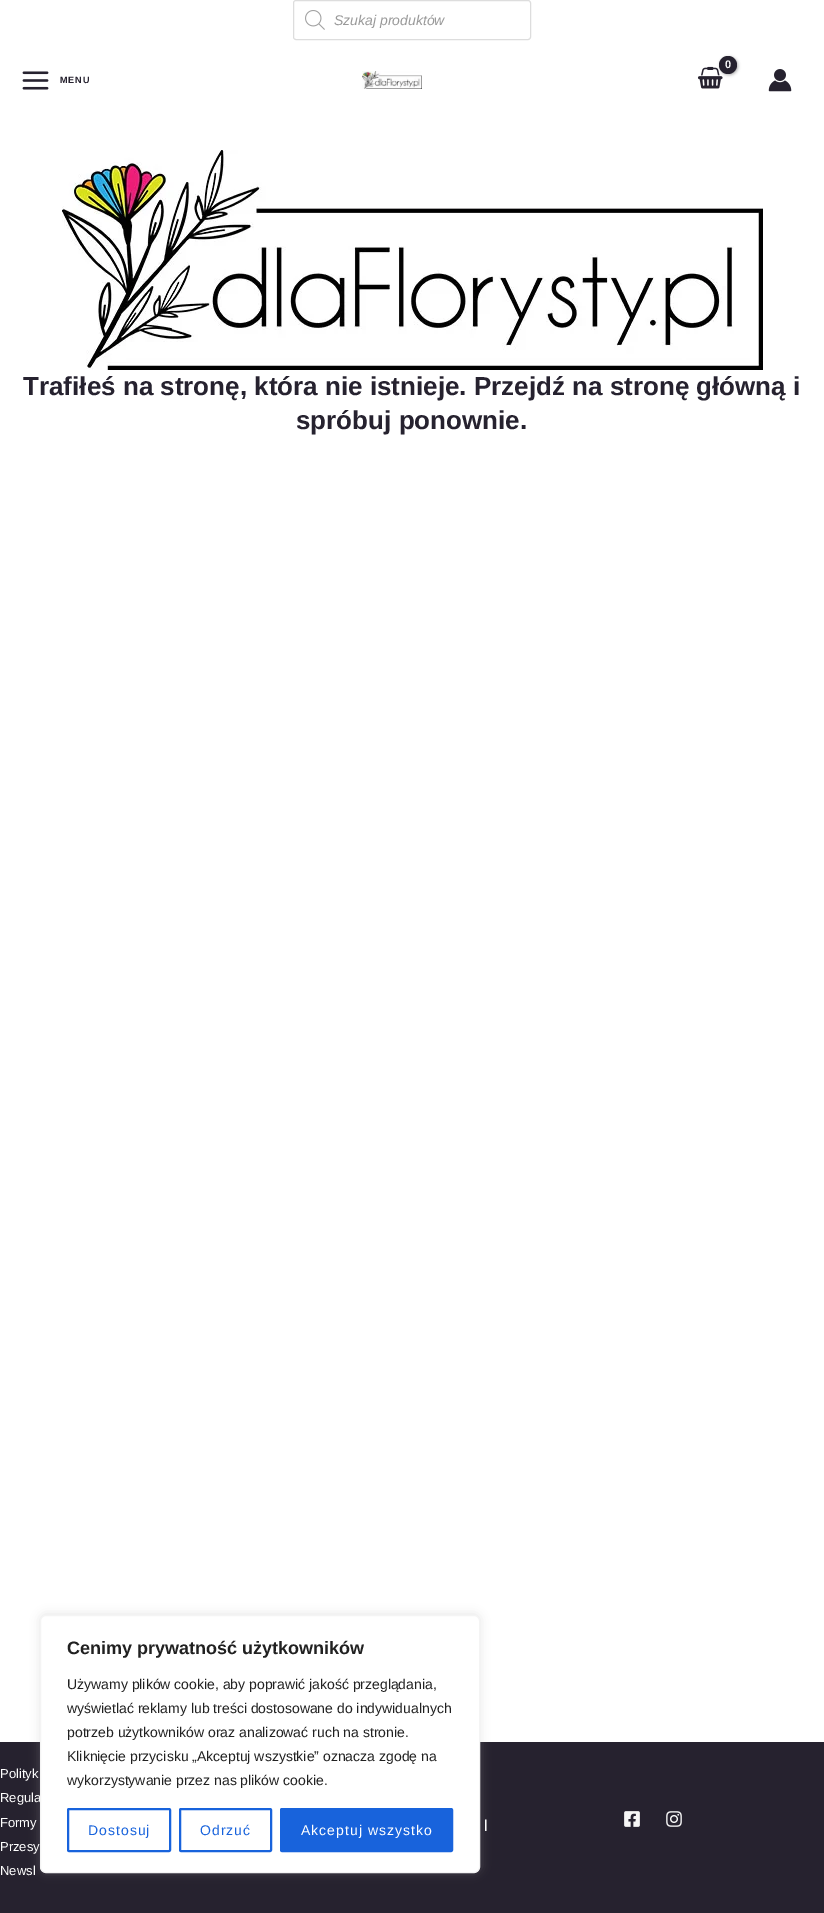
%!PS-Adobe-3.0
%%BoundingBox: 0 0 824 1913
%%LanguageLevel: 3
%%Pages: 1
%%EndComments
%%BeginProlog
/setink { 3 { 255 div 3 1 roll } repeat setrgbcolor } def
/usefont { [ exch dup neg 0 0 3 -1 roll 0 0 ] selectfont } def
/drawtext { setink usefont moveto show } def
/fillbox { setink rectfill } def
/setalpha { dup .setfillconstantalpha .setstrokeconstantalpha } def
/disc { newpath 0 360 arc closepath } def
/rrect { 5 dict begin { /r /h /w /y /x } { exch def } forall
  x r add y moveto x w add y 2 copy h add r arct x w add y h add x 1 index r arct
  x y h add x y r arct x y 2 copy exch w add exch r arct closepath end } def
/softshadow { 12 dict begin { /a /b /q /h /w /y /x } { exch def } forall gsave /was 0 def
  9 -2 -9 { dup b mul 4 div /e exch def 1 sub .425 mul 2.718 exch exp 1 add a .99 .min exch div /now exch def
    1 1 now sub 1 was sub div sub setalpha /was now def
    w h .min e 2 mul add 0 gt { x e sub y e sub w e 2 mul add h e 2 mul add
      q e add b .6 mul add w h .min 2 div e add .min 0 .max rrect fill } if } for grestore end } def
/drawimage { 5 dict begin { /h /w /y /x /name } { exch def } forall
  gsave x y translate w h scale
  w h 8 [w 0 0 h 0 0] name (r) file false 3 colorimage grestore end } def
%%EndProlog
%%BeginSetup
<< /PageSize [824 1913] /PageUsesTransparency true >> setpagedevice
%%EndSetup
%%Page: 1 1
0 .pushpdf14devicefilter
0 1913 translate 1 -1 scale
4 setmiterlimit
0 0 824 1913 255 255 255 fillbox
221 221 221 setink
293.5 0.5 237 39 2.5 rrect stroke
(assets/img1.rgb) 305 10 20 20 drawimage
(Szukaj produktów) 334 25 /LiberationSans-Italic 14 153 153 153 drawtext
(assets/img2.rgb) 697 66 26 23 drawimage
0 0 0 setink
720 57 18 18 9 1.5 0.3 softshadow
38 34 47 setink
728 65 9 disc fill
(0) 725 68 /LiberationSans-Bold 11 247 247 247 drawtext
(assets/img3.rgb) 768 69 24 23 drawimage
(assets/img4.rgb) 22 71 27 19 drawimage
/LiberationSans-Bold 9 usefont
38 34 47 setink
60 83 moveto 1 0 (MENU) ashow
(assets/img5.rgb) 362 71 60 18 drawimage
(assets/img6.rgb) 62 150 701 220 drawimage
(Trafiłeś na stronę, która nie istnieje. Przejdź na stronę główną i) 23 395 /LiberationSans-Bold 26 38 34 47 drawtext
(spróbuj ponownie.) 296 429 /LiberationSans-Bold 26 38 34 47 drawtext
0 1742 824 171 38 34 47 fillbox
(Polityk) 0 1778 /LiberationSans-Regular 13 255 255 255 drawtext
(Regula) 0 1802 /LiberationSans-Regular 13 255 255 255 drawtext
(Formy) 0 1827 /LiberationSans-Regular 13 255 255 255 drawtext
(Przesy) 0 1851 /LiberationSans-Regular 13 255 255 255 drawtext
(Newsl) 0 1875 /LiberationSans-Regular 13 255 255 255 drawtext
(l) 484 1831 /LiberationSans-Regular 16 255 255 255 drawtext
(assets/img7.rgb) 624 1811 16 16 drawimage
(assets/img8.rgb) 666 1811 16 16 drawimage
172 171 171 setink
40 1614 440 258 6 5 0.3 softshadow
255 255 255 setink
40.5 1615.5 439 257 5.5 rrect gsave fill grestore
244 244 244 setink
stroke
(Cenimy prywatność użytkowników) 67 1654 /LiberationSans-Bold 18 33 33 33 drawtext
(Używamy plików cookie, aby poprawić jakość przeglądania,) 67 1689 /LiberationSans-Regular 14 33 33 33 drawtext
(wyświetlać reklamy lub treści dostosowane do indywidualnych) 67 1713 /LiberationSans-Regular 14 33 33 33 drawtext
(potrzeb użytkowników oraz analizować ruch na stronie.) 67 1737 /LiberationSans-Regular 14 33 33 33 drawtext
(Kliknięcie przycisku „Akceptuj wszystkie” oznacza zgodę na) 67 1761 /LiberationSans-Regular 14 33 33 33 drawtext
(wykorzystywanie przez nas plików cookie.) 67 1785 /LiberationSans-Regular 14 33 33 33 drawtext
24 99 220 setink
2 setlinewidth
68 1809 102 42 1 rrect stroke
88 1835 moveto 1 0 (Dostosuj) ashow
180 1809 91 42 1 rrect stroke
200 1835 moveto 1 0 (Odrzuć) ashow
281 1809 171 42 1 rrect gsave fill grestore
stroke
255 255 255 setink
301 1835 moveto 1 0 (Akceptuj wszystko) ashow
.poppdf14devicefilter showpage
%%EOF
